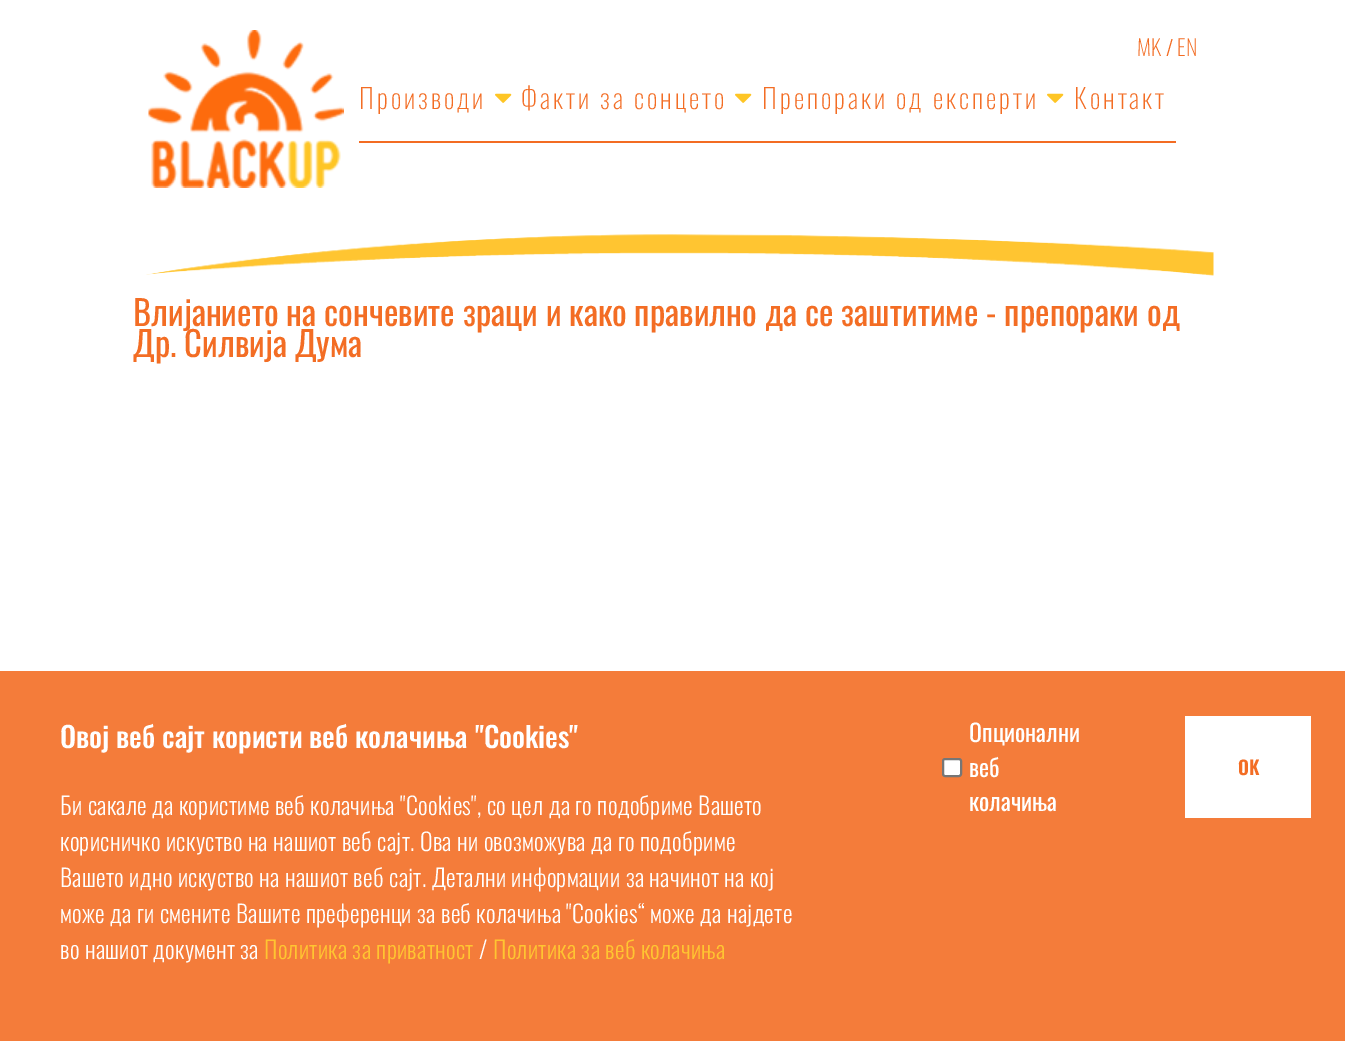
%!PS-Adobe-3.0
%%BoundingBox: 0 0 1345 1041
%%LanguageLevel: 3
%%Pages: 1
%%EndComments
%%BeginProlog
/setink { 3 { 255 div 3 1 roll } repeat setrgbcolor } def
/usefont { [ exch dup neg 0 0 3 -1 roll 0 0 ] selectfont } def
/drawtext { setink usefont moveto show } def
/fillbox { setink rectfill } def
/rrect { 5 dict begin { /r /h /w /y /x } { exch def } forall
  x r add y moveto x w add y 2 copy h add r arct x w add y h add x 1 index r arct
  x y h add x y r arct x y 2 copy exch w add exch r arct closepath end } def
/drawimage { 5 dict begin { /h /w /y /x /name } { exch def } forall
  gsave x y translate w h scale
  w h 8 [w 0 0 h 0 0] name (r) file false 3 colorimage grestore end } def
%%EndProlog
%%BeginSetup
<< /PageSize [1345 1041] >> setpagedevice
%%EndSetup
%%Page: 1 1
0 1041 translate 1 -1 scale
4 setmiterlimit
0 0 1345 1041 255 255 255 fillbox
(assets/img1.rgb) 148 30 196 158 drawimage
(MK) 1137 56 /Oswald-ExtraLight 22 243 109 36 drawtext
(/) 1166 56 /Oswald-Light 21 243 109 36 drawtext
(EN) 1177 56 /Oswald-ExtraLight 22 243 109 36 drawtext
359 141 817 2 243 108 35 fillbox
/Oswald-ExtraLight 27 usefont
243 109 36 setink
359 109 moveto 3 0 (Производи) ashow
(assets/img2.rgb) 495 93 17 10 drawimage
521 109 moveto 3 0 (Факти за сонцето) ashow
(assets/img2.rgb) 735 93 17 10 drawimage
762 109 moveto 3 0 (Препораки од експерти) ashow
(assets/img2.rgb) 1047 93 17 10 drawimage
1074 109 moveto 3 0 (Контакт) ashow
(assets/img3.rgb) 146 234 1068 42 drawimage
(Влијанието на сончевите зраци и како правилно да се заштитиме - препораки од) 133 326 /Oswald-Regular 34.5 243 109 36 drawtext
(Др. Силвија Дума) 133 357 /Oswald-Regular 34.5 243 109 36 drawtext
0 671 1345 370 244 124 58 fillbox
(Овој веб сајт користи веб колачиња "Cookies") 60 748 /Oswald-Medium 28.5 255 255 255 drawtext
/Oswald-Light 24 usefont
60 815 moveto 0.3 0 (Би сакале да користиме веб колачиња "Cookies", со цел да го подобриме Вашето) ashow
60 851 moveto 0.3 0 (корисничко искуство на нашиот веб сајт. Ова ни овозможува да го подобриме) ashow
60 887 moveto 0.3 0 (Вашето идно искуство на нашиот веб сајт. Детални информации за начинот на кој) ashow
60 923 moveto 0.3 0 (може да ги смените Вашите преференци за веб колачиња "Cookies“ може да најдете) ashow
60 959 moveto 0.3 0 (во нашиот документ за) ashow
255 197 49 setink
264 959 moveto 0.3 0 (Политика за приватност) ashow
255 255 255 setink
479 959 moveto 0.3 0 (/) ashow
255 197 49 setink
493 959 moveto 0.3 0 (Политика за веб колачиња) ashow
255 255 255 setink
943 759 18 17 2 rrect gsave fill grestore
118 118 118 setink
2 setlinewidth
stroke
(Опционални) 969 742 /Oswald-Regular 24 255 255 255 drawtext
(веб) 969 777 /Oswald-Regular 24 255 255 255 drawtext
(колачиња) 969 811 /Oswald-Regular 24 255 255 255 drawtext
1185 716 126 102 255 255 255 fillbox
(OK) 1238 775 /Oswald-SemiBold 19 243 109 36 drawtext
showpage
%%EOF
